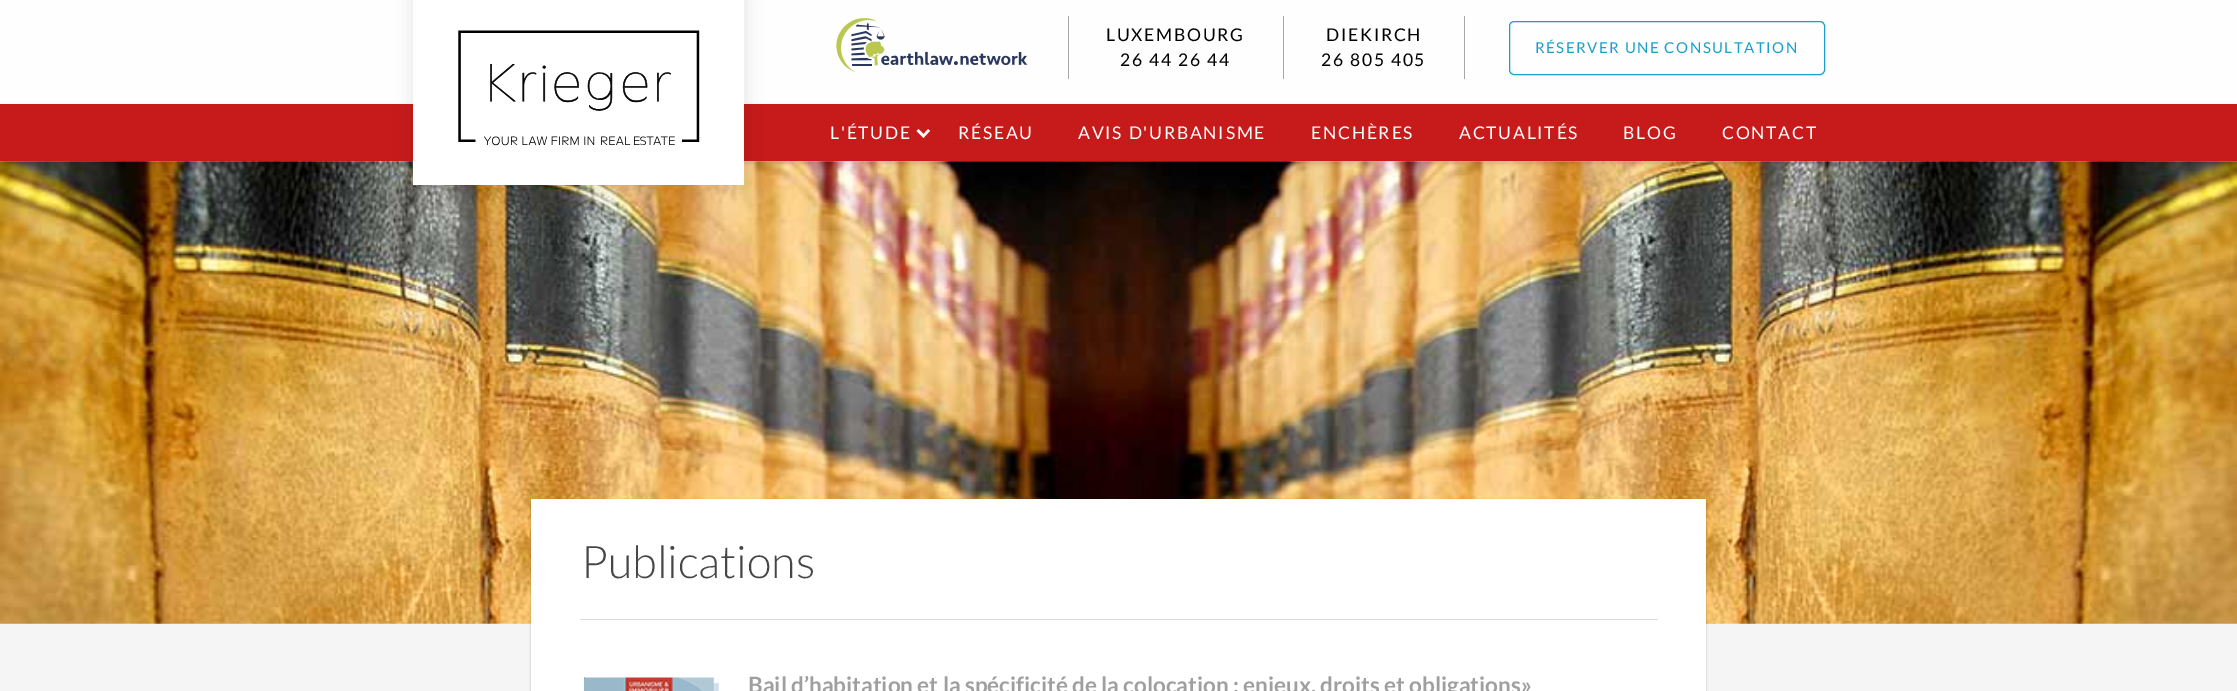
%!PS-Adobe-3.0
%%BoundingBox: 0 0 2237 691
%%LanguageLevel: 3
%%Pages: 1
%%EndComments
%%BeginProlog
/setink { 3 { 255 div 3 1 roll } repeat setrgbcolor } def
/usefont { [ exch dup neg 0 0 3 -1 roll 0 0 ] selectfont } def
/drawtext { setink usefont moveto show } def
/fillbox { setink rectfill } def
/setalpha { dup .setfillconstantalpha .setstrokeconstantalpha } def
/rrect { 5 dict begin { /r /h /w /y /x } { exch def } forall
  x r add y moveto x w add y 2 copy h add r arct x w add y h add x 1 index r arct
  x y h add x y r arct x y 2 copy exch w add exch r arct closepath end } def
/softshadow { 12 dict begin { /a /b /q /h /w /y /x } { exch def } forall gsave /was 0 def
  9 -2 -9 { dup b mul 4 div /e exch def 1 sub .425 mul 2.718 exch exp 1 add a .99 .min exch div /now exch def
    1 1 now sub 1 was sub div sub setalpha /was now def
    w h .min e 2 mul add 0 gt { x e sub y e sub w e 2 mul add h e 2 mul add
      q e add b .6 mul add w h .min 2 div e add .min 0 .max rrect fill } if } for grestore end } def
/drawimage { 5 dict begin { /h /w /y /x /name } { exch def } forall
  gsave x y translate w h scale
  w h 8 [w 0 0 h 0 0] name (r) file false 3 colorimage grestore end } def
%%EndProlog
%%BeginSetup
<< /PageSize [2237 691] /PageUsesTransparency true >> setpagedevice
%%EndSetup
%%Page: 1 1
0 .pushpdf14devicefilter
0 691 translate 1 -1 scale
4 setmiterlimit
0 0 2237 691 245 245 245 fillbox
0 0 2237 104 254 254 254 fillbox
(assets/img1.rgb) 836 18 192 54 drawimage
1068 16 1 63 167 167 165 fillbox
/Lato-Regular 17.5 usefont
0 0 0 setink
1106 41 moveto 1.75 0 (LUXEMBOURG) ashow
1120 66 moveto 1.75 0 (26 44 26 44) ashow
1464 16 1 63 167 167 165 fillbox
1283 16 1 63 167 167 165 fillbox
0 0 0 setink
1326 41 moveto 1.75 0 (DIEKIRCH) ashow
1321 66 moveto 1.75 0 (26 805 405) ashow
26 160 199 setink
1509.5 21.5 315 53 4.5 rrect stroke
/Lato-Regular 15 usefont
1535 53 moveto 1.5 0 (RÉSERVER UNE CONSULTATION) ashow
(assets/img3.rgb) 0 161 2237 463 drawimage
0 0 0 setink
0 106 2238 58 0 2 0.13 softshadow
0 104 2237 57 199 26 26 fillbox
0 0 0 setink
413 0 333 188 0 9 0.1 softshadow
413 0 331 185 255 255 255 fillbox
(assets/img2.rgb) 458 30 242 116 drawimage
/Lato-Regular 17.5 usefont
830 139 moveto 1.75 0 (L'ÉTUDE) ashow
2.5 setlinewidth
929 130 moveto 923.5 136 lineto 917.5 130 lineto stroke
958 139 moveto 1.75 0 (RÉSEAU) ashow
1078 139 moveto 1.75 0 (AVIS D'URBANISME) ashow
1311 139 moveto 1.75 0 (ENCHÈRES) ashow
1459 139 moveto 1.75 0 (ACTUALITÉS) ashow
1623 139 moveto 1.75 0 (BLOG) ashow
1722 139 moveto 1.75 0 (CONTACT) ashow
0 0 0 setink
531 500 1175 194 0 1 0.26 softshadow
531 499 1175 192 255 255 255 fillbox
580 619 1078 1 219 219 219 fillbox
(Publications) 581 578 /Lato-Light 45 70 70 70 drawtext
(assets/img4.rgb) 583 677 136 14 drawimage
(Bail d’habitation et la spécificité de la colocation : enjeux, droits et obligations») 748 693 /Lato-Bold 22.5 159 159 159 drawtext
.poppdf14devicefilter showpage
%%EOF
